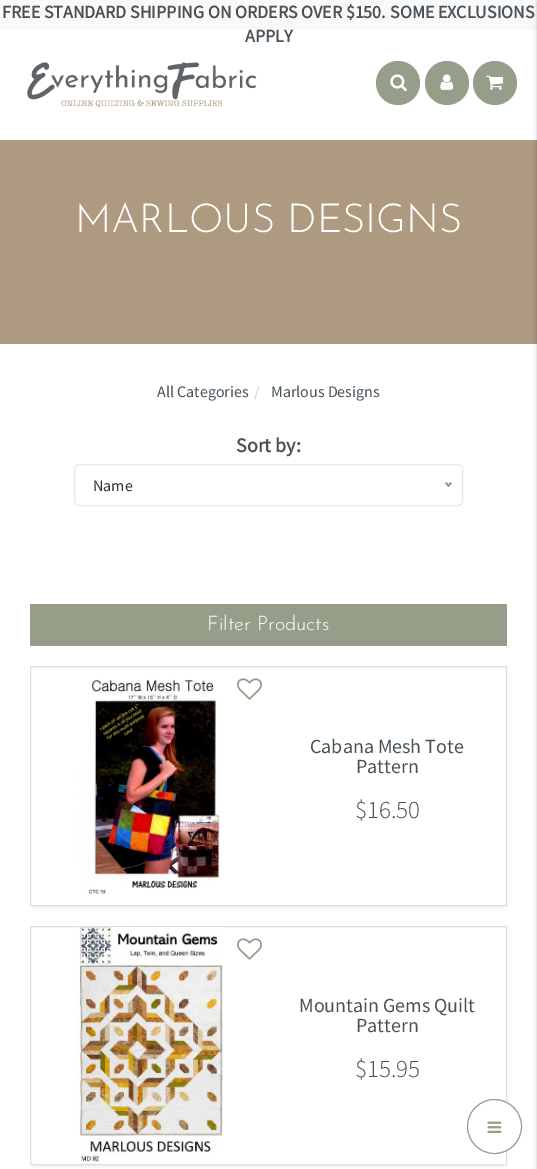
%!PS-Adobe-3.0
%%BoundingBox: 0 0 537 1169
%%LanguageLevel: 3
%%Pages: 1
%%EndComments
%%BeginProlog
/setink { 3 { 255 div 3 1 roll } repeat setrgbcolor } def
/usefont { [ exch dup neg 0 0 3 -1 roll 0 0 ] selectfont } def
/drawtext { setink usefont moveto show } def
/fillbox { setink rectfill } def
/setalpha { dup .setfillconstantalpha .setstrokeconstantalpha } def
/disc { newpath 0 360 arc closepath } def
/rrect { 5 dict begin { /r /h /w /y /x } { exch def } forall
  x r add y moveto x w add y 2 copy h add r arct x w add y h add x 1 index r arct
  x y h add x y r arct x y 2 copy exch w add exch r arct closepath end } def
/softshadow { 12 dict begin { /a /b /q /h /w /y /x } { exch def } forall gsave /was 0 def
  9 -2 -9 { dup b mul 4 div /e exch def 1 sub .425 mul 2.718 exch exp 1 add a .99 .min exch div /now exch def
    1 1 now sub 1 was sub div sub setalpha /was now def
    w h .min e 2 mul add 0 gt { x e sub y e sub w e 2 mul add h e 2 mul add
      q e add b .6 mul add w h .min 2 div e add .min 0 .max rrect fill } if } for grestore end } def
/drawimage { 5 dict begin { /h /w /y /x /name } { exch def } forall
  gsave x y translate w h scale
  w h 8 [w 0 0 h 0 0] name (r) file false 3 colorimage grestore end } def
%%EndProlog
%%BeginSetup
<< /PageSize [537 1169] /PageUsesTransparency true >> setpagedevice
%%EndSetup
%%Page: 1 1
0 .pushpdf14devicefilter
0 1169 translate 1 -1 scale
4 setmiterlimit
0 0 537 1169 255 255 255 fillbox
0 0 537 30 249 249 249 fillbox
0 140 537 204 174 153 129 fillbox
0 0 0 setink
537 1 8 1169 0 2.5 0.12 softshadow
537 2 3 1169 0 1 0.14 softshadow
gsave
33 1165 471 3 rectclip
34 933 469 231 0 4 0.15 softshadow
grestore
222 222 222 setink
30.5 926.5 476 238 rectstroke
255 255 255 setink
494.5 1126.5 27 disc gsave fill grestore
148 158 136 setink
stroke
(assets/img1.rgb) 487 1121 15 12 drawimage
(FREE STANDARD SHIPPING ON ORDERS OVER $150.) 2 18 /SourceSansPro-Bold 18 78 78 78 drawtext
(SOME EXCLUSIONS) 390 18 /SourceSansPro-Bold 18 73 83 90 drawtext
(APPLY) 245 42 /SourceSansPro-Bold 18 73 83 90 drawtext
(assets/img2.rgb) 27 62 230 46 drawimage
148 158 136 setink
398 83 22 disc fill
(assets/img3.rgb) 390 74 17 18 drawimage
447 83 22 disc fill
(assets/img4.rgb) 440 74 14 16 drawimage
495 83 22 disc fill
(assets/img5.rgb) 486 75 17 15 drawimage
(MARLOUS DESIGNS) 75 232 /JosefinSans-Thin 40 255 255 255 drawtext
(All Categories) 157 397 /SourceSansPro-Regular 16 73 83 90 drawtext
(/) 254 397 /SourceSansPro-Regular 16 204 204 204 drawtext
(Marlous Designs) 271 397 /SourceSansPro-Regular 16 73 83 90 drawtext
(Sort by:) 236 452 /SourceSansPro-Bold 20 73 83 90 drawtext
232 232 232 setink
74.5 464.5 388 41 4.5 rrect stroke
(Name) 93 491 /SourceSansPro-Regular 16 51 51 51 drawtext
153 153 153 setink
450.5 482 moveto 452 483.5 lineto 448.5 487 lineto 447 485.5 lineto closepath fill
446.5 482 moveto 450 485.5 lineto 448.5 487 lineto 445 483.5 lineto closepath fill
30 604 477 42 148 158 136 fillbox
(Filter Products) 207 630 /JosefinSans-Thin 20 255 255 255 drawtext
gsave
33 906 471 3 rectclip
0 0 0 setink
34 673 469 232 0 4 0.15 softshadow
grestore
222 222 222 setink
30.5 666.5 476 239 rectstroke
(assets/img6.rgb) 78 679 143 215 drawimage
(assets/img7.rgb) 237 678 25 22 drawimage
(Cabana Mesh Tote) 310 753 /SourceSansPro-Regular 20 73 83 90 drawtext
(Pattern) 356 773 /SourceSansPro-Regular 20 73 83 90 drawtext
($16.50) 355 818 /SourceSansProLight-Light 25 78 78 78 drawtext
(assets/img8.rgb) 78 927 145 235 drawimage
(assets/img7.rgb) 237 938 25 22 drawimage
(Mountain Gems Quilt) 299 1012 /SourceSansPro-Regular 20 73 83 90 drawtext
(Pattern) 356 1032 /SourceSansPro-Regular 20 73 83 90 drawtext
($15.95) 355 1077 /SourceSansProLight-Light 25 78 78 78 drawtext
.poppdf14devicefilter showpage
%%EOF
